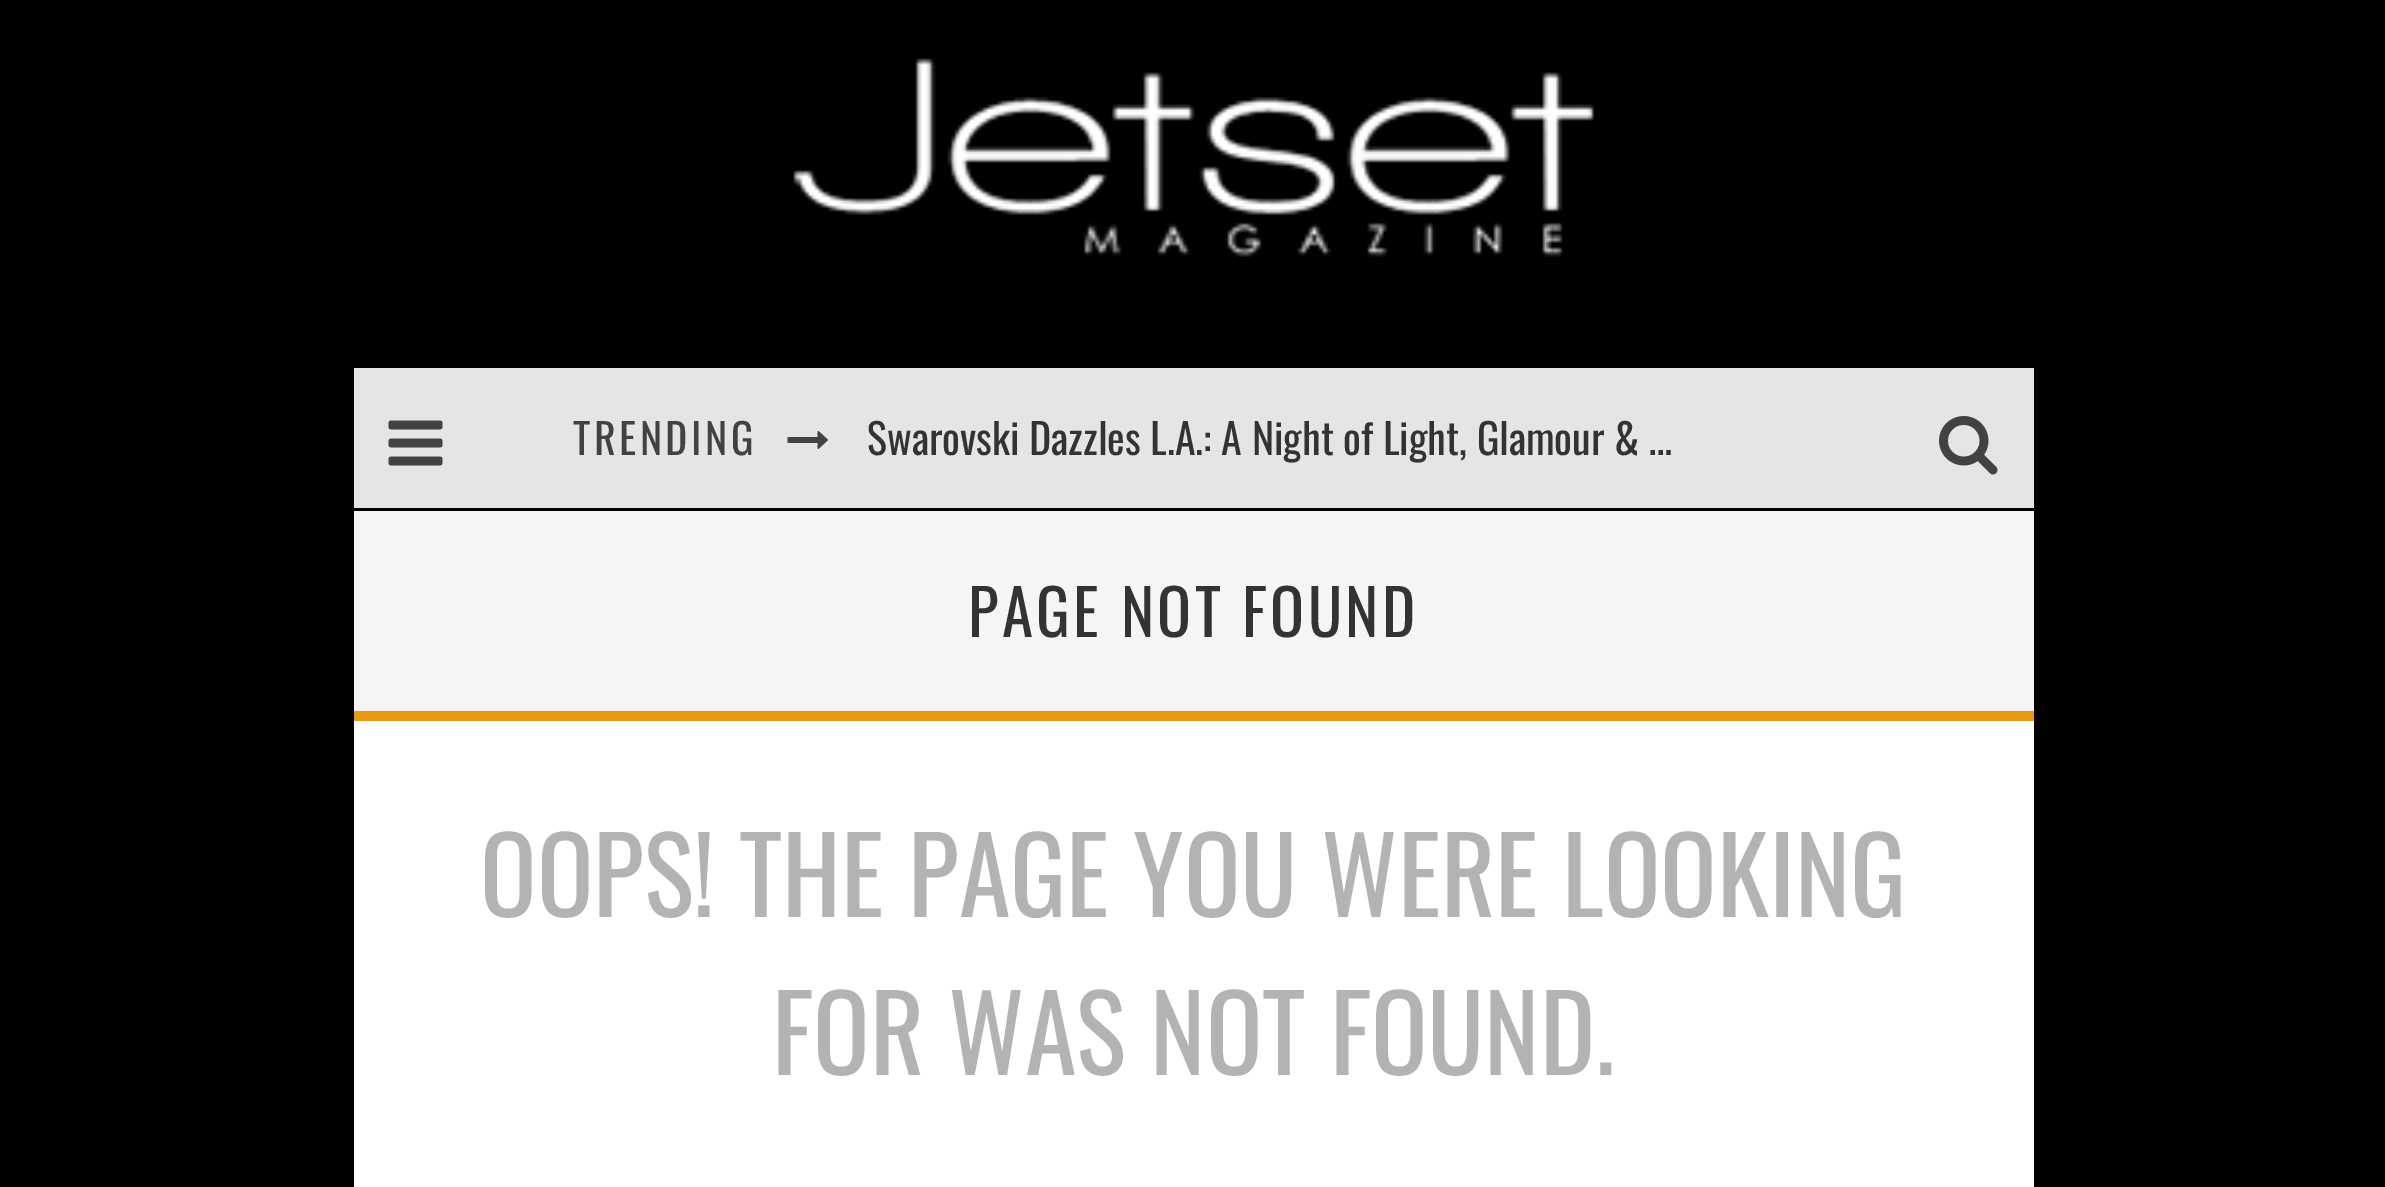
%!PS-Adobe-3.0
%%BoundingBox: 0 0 2385 1187
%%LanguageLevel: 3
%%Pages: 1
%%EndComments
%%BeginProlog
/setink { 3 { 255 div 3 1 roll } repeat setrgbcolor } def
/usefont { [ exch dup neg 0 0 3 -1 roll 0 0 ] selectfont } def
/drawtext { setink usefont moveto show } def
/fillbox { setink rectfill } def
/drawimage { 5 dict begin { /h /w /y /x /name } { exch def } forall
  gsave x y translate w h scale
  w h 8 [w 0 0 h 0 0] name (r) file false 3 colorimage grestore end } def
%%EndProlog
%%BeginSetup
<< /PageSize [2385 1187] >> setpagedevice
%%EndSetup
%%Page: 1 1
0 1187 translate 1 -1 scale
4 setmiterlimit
0 0 2385 1187 0 0 0 fillbox
(assets/img1.rgb) 793 58 801 199 drawimage
354 368 1680 140 229 229 229 fillbox
(assets/img2.rgb) 388 420 55 46 drawimage
/Oswald-Regular 42 usefont
66 66 66 setink
573 455 moveto 3.5 0 (TRENDING) ashow
(assets/img3.rgb) 787 431 41 18 drawimage
(Swarovski Dazzles L.A.: A Night of Light, Glamour & …) 867 455 /Oswald-Regular 42 51 51 51 drawtext
(assets/img4.rgb) 1939 416 59 59 drawimage
354 511 1680 200 245 245 245 fillbox
354 711 1680 10 235 152 18 fillbox
/Oswald-Regular 63 usefont
51 51 51 setink
968 637 moveto 3.5 0 (PAGE NOT FOUND) ashow
354 721 1680 466 255 255 255 fillbox
(OOPS! THE PAGE YOU WERE LOOKING) 480 917 /Oswald-Regular 105 179 179 179 drawtext
(FOR WAS NOT FOUND.) 772 1075 /Oswald-Regular 105 179 179 179 drawtext
showpage
%%EOF
